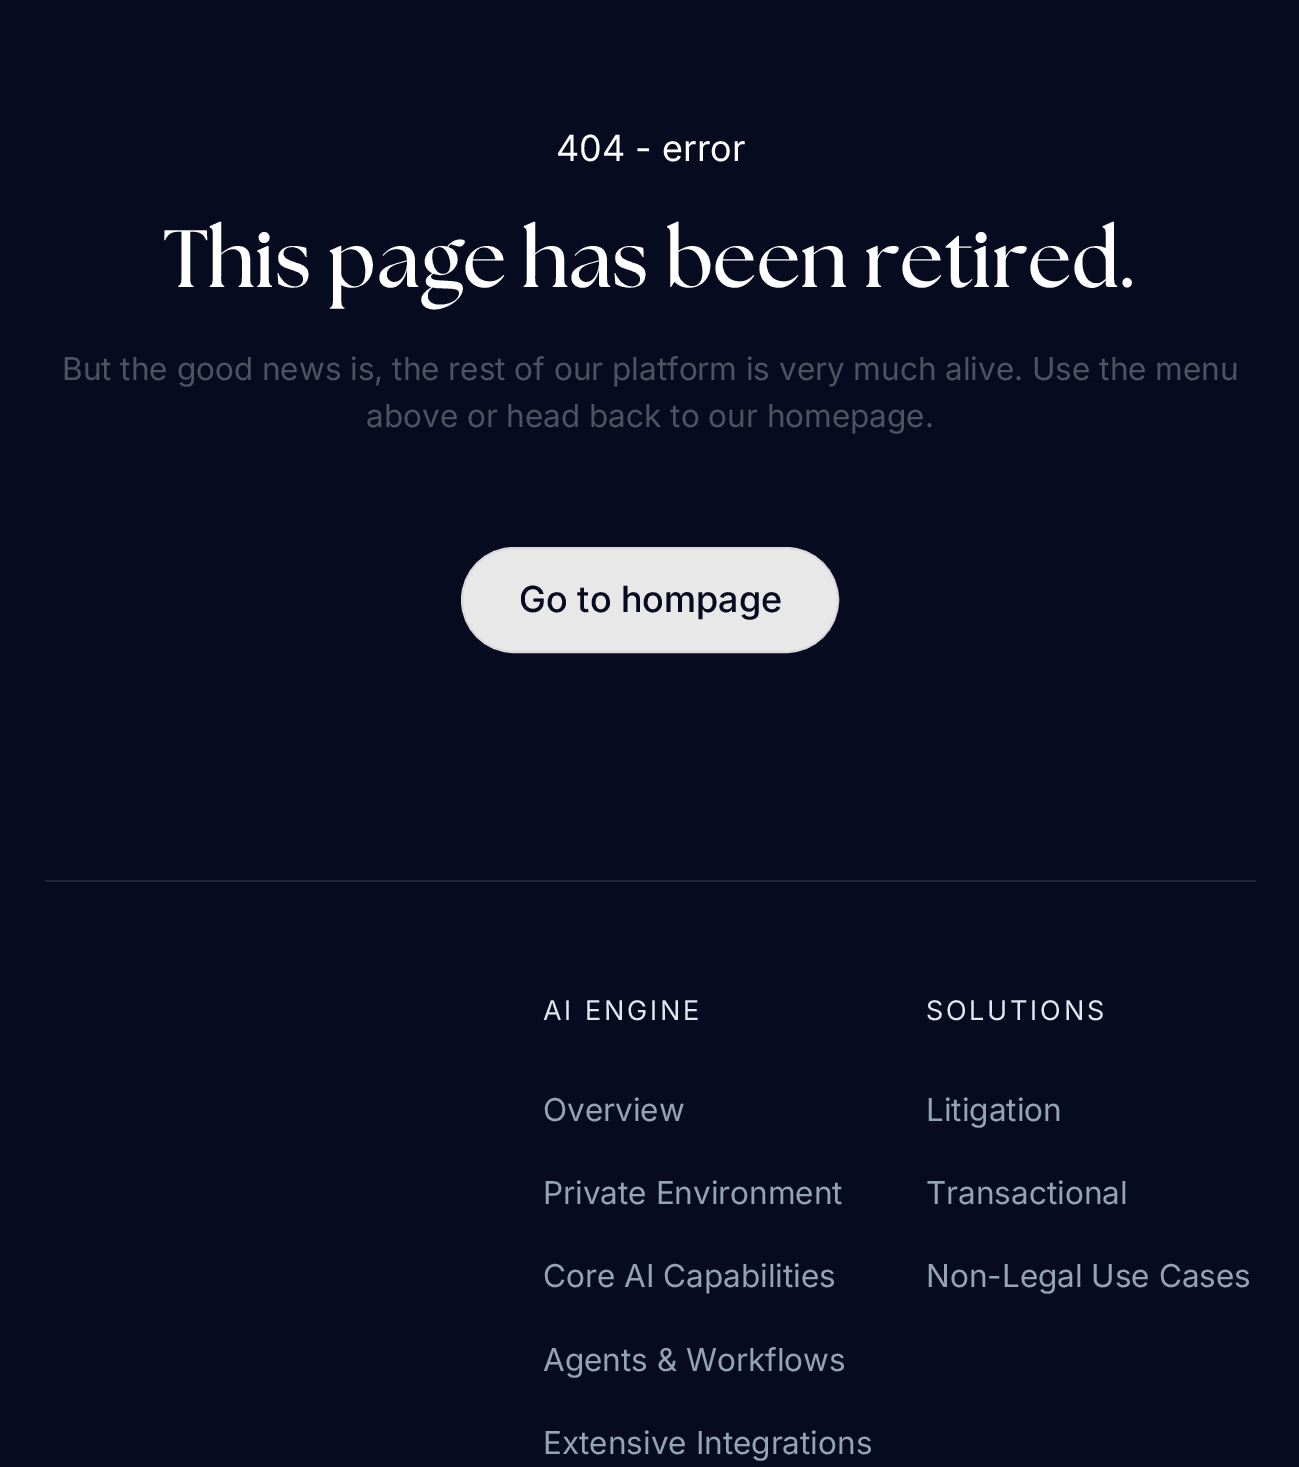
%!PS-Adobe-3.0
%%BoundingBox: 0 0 1299 1467
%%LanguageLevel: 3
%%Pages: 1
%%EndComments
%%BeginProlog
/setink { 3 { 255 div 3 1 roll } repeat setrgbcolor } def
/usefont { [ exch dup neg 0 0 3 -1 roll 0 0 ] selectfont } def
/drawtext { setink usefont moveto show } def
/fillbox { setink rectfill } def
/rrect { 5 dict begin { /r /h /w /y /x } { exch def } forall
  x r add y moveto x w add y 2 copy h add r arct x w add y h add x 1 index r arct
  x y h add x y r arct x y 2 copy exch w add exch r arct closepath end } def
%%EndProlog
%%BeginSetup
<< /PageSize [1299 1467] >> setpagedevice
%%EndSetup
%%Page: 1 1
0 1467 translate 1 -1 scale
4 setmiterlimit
0 0 1299 1467 7 11 32 fillbox
(404 - error) 556 161 /Inter-Regular 36 255 255 255 drawtext
(This page has been retired.) 163 287 /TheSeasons-Bold 81 255 255 255 drawtext
(But the good news is, the rest of our platform is very much alive. Use the menu) 62 380 /Inter-Regular 31.5 80 82 97 drawtext
(above or head back to our homepage.) 366 427 /Inter-Regular 31.5 80 82 97 drawtext
233 232 232 setink
462 548 376 104 52 rrect gsave fill grestore
220 218 218 setink
2 setlinewidth
stroke
(Go to hompage) 519 612 /Inter-Medium 36 7 11 32 drawtext
45 880 1211 2 33 35 54 fillbox
/Inter-Regular 27 usefont
226 232 240 setink
543 1020 moveto 2.75 0 (AI ENGINE) ashow
(Overview) 543 1121 /Inter-Regular 31.5 148 163 184 drawtext
(Private Environment) 543 1204 /Inter-Regular 31.5 148 163 184 drawtext
(Core AI Capabilities) 543 1287 /Inter-Regular 31.5 148 163 184 drawtext
(Agents & Workflows) 543 1371 /Inter-Regular 31.5 148 163 184 drawtext
(Extensive Integrations) 543 1454 /Inter-Regular 31.5 148 163 184 drawtext
/Inter-Regular 27 usefont
226 232 240 setink
926 1020 moveto 2.75 0 (SOLUTIONS) ashow
(Litigation) 926 1121 /Inter-Regular 31.5 148 163 184 drawtext
(Transactional) 926 1204 /Inter-Regular 31.5 148 163 184 drawtext
(Non-Legal Use Cases) 926 1287 /Inter-Regular 31.5 148 163 184 drawtext
showpage
%%EOF
